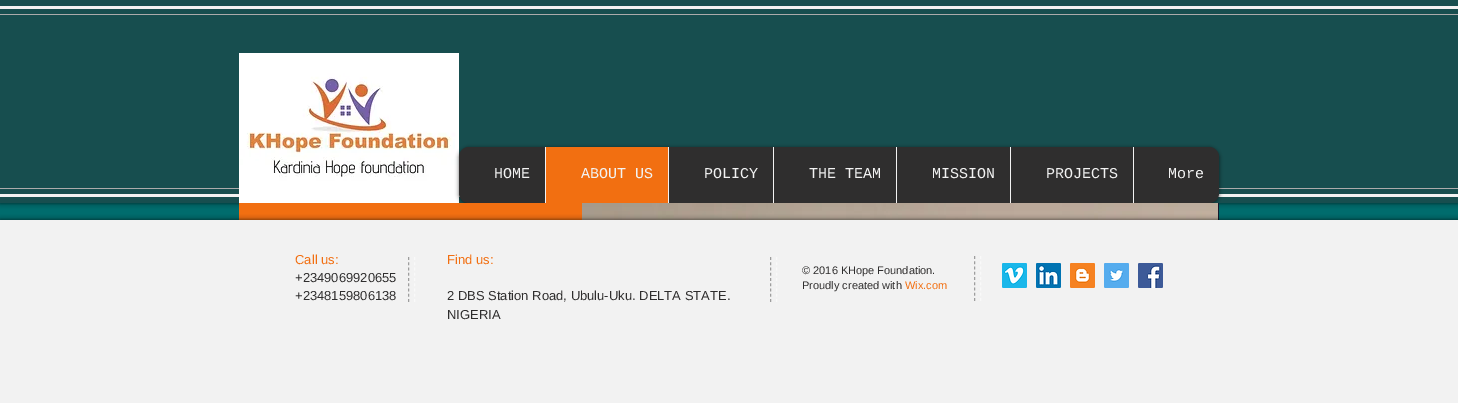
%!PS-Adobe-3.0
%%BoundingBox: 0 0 1458 403
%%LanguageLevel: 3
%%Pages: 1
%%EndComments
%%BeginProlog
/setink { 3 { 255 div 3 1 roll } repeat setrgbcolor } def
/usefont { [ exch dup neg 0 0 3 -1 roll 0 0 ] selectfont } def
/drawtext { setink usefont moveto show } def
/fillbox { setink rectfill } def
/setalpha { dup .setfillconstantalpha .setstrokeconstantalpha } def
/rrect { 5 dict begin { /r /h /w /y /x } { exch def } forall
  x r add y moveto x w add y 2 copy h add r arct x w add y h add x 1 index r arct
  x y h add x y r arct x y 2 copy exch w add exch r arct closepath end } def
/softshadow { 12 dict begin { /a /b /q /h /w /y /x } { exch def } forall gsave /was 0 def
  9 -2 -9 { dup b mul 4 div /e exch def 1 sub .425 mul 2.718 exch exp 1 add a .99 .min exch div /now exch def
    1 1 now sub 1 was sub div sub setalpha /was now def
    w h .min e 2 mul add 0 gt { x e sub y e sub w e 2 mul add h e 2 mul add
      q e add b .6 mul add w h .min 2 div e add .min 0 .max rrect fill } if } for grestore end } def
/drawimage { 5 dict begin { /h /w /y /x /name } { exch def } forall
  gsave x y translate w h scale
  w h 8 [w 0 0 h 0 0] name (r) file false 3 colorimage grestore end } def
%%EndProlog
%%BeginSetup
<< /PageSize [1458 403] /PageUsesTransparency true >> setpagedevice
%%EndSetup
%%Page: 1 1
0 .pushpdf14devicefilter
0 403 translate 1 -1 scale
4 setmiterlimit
0 0 1458 403 0 108 109 fillbox
0 0 0 setink
0 0 1458 203 0 2.5 0.7 softshadow
0 0 1458 203 23 78 79 fillbox
0 6 1458 3 242 242 242 fillbox
0 194 1458 3 242 242 242 fillbox
0 14 1458 1 172 171 171 fillbox
0 188 1458 1 172 171 171 fillbox
(assets/img1.rgb) 239 53 220 150 drawimage
0 0 0 setink
459 148 760 56 10 2 0.6 softshadow
47 46 46 setink
459 147 760 56 10 rrect fill
(HOME) 494 178 /LiberationMono-Regular 15 242 242 242 drawtext
546 147 122 56 242 111 17 fillbox
545 147 1 56 242 242 242 fillbox
(ABOUT US) 581 178 /LiberationMono-Regular 15 242 242 242 drawtext
668 147 1 56 242 242 242 fillbox
(POLICY) 704 178 /LiberationMono-Regular 15 242 242 242 drawtext
773 147 1 56 242 242 242 fillbox
(THE TEAM) 809 178 /LiberationMono-Regular 15 242 242 242 drawtext
896 147 1 56 242 242 242 fillbox
(MISSION) 932 178 /LiberationMono-Regular 15 242 242 242 drawtext
1010 147 1 56 242 242 242 fillbox
(PROJECTS) 1046 178 /LiberationMono-Regular 15 242 242 242 drawtext
1133 147 1 56 242 242 242 fillbox
(More) 1168 178 /LiberationMono-Regular 15 242 242 242 drawtext
239 203 343 17 242 111 17 fillbox
(assets/img2.rgb) 582 203 636 17 drawimage
1218 203 1 17 20 26 45 fillbox
0 0 0 setink
0 220 1458 183 0 2.5 0.7 softshadow
0 220 1458 183 242 242 242 fillbox
(Call us:) 295 264 /LiberationSans-Regular 13 242 111 17 drawtext
(+2349069920655) 295 282 /LiberationSans-Regular 13 47 46 46 drawtext
(+2348159806138) 295 300 /LiberationSans-Regular 13 47 46 46 drawtext
249 249 249 setink
[3 2.25] 0 setdash
414.5 257 moveto 414.5 302 lineto stroke
157 157 157 setink
408.5 257 moveto 408.5 302 lineto stroke
(Find us:) 447 264 /LiberationSans-Regular 13 242 111 17 drawtext
(2 DBS Station Road, Ubulu-Uku. DELTA STATE.) 447 300 /LiberationSans-Regular 13 47 46 46 drawtext
(NIGERIA) 447 319 /LiberationSans-Regular 13 47 46 46 drawtext
249 249 249 setink
776.5 257 moveto 776.5 302 lineto stroke
157 157 157 setink
770.5 257 moveto 770.5 302 lineto stroke
(© 2016 KHope Foundation.) 802 274 /LiberationSans-Regular 11 47 46 46 drawtext
(Proudly created with) 802 289 /LiberationSans-Regular 11 47 46 46 drawtext
(Wix.com) 905 289 /LiberationSans-Regular 11 242 111 17 drawtext
249 249 249 setink
980.5 256 moveto 980.5 301 lineto stroke
157 157 157 setink
974.5 256 moveto 974.5 301 lineto stroke
(assets/img3.rgb) 1002 263 25 25 drawimage
(assets/img4.rgb) 1036 263 25 25 drawimage
(assets/img5.rgb) 1070 263 25 25 drawimage
(assets/img6.rgb) 1104 263 25 25 drawimage
(assets/img7.rgb) 1138 263 25 25 drawimage
.poppdf14devicefilter showpage
%%EOF
